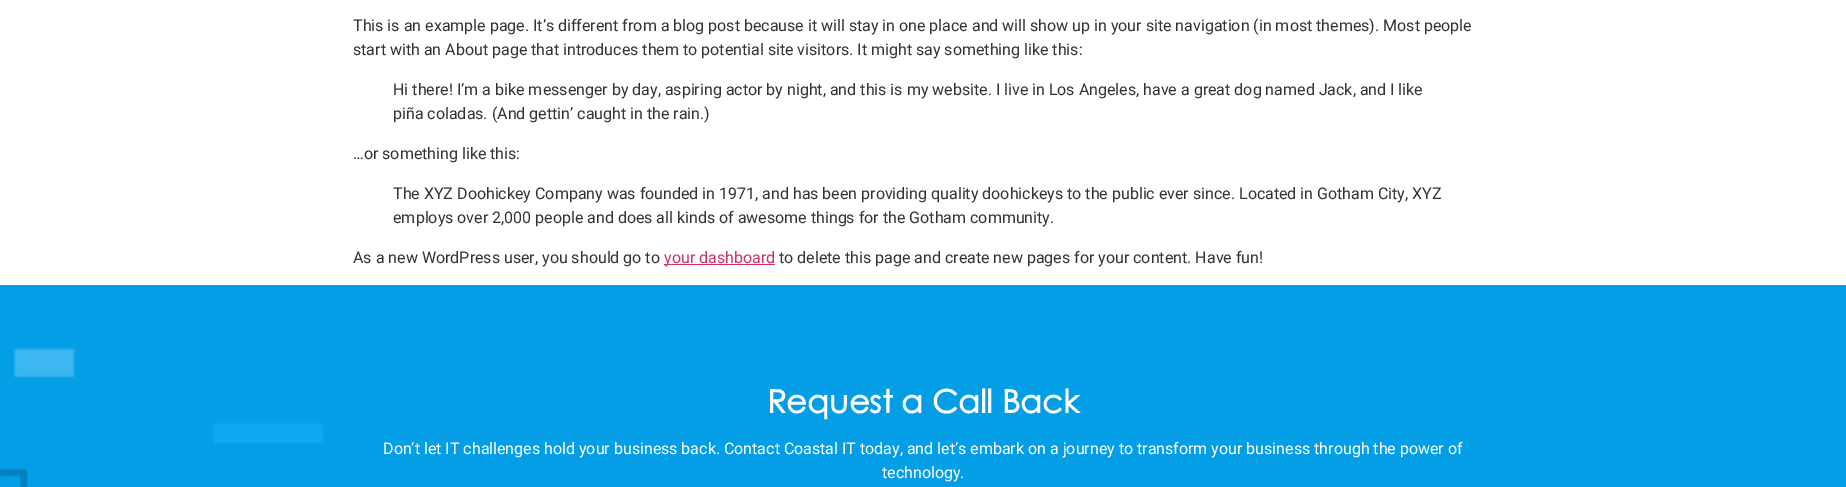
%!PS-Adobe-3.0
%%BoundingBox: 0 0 1846 487
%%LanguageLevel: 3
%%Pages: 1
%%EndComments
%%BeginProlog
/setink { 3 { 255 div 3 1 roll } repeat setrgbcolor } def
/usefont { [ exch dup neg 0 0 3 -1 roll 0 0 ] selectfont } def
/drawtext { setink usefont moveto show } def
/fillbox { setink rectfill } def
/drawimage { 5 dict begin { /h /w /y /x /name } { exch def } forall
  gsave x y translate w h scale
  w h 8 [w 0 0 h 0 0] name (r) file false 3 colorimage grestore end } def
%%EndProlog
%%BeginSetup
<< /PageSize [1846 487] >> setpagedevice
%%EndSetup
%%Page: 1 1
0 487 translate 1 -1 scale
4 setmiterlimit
0 0 1846 487 255 255 255 fillbox
(This is an example page. It’s different from a blog post because it will stay in one place and will show up in your site navigation \(in most themes\). Most people) 353 31 /Roboto-Regular 16 51 51 51 drawtext
(start with an About page that introduces them to potential site visitors. It might say something like this:) 353 55 /Roboto-Regular 16 51 51 51 drawtext
(Hi there! I’m a bike messenger by day, aspiring actor by night, and this is my website. I live in Los Angeles, have a great dog named Jack, and I like) 393 95 /Roboto-Regular 16 51 51 51 drawtext
(piña coladas. \(And gettin’ caught in the rain.\)) 393 119 /Roboto-Regular 16 51 51 51 drawtext
(…or something like this:) 353 159 /Roboto-Regular 16 51 51 51 drawtext
(The XYZ Doohickey Company was founded in 1971, and has been providing quality doohickeys to the public ever since. Located in Gotham City, XYZ) 393 199 /Roboto-Regular 16 51 51 51 drawtext
(employs over 2,000 people and does all kinds of awesome things for the Gotham community.) 393 223 /Roboto-Regular 16 51 51 51 drawtext
(As a new WordPress user, you should go to) 353 263 /Roboto-Regular 16 51 51 51 drawtext
664 264 111 1 204 51 102 fillbox
(your dashboard) 664 263 /Roboto-Regular 16 204 51 102 drawtext
(to delete this page and create new pages for your content. Have fun!) 779 263 /Roboto-Regular 16 51 51 51 drawtext
(assets/img1.rgb) 0 285 1846 202 drawimage
(Request a Call Back) 767 413 /CenturyGothic-Bold 32 255 255 255 drawtext
(Don’t let IT challenges hold your business back. Contact Coastal IT today, and let’s embark on a journey to transform your business through the power of) 383 454 /Roboto-Regular 16 255 255 255 drawtext
(technology.) 882 478 /Roboto-Regular 16 255 255 255 drawtext
showpage
%%EOF
